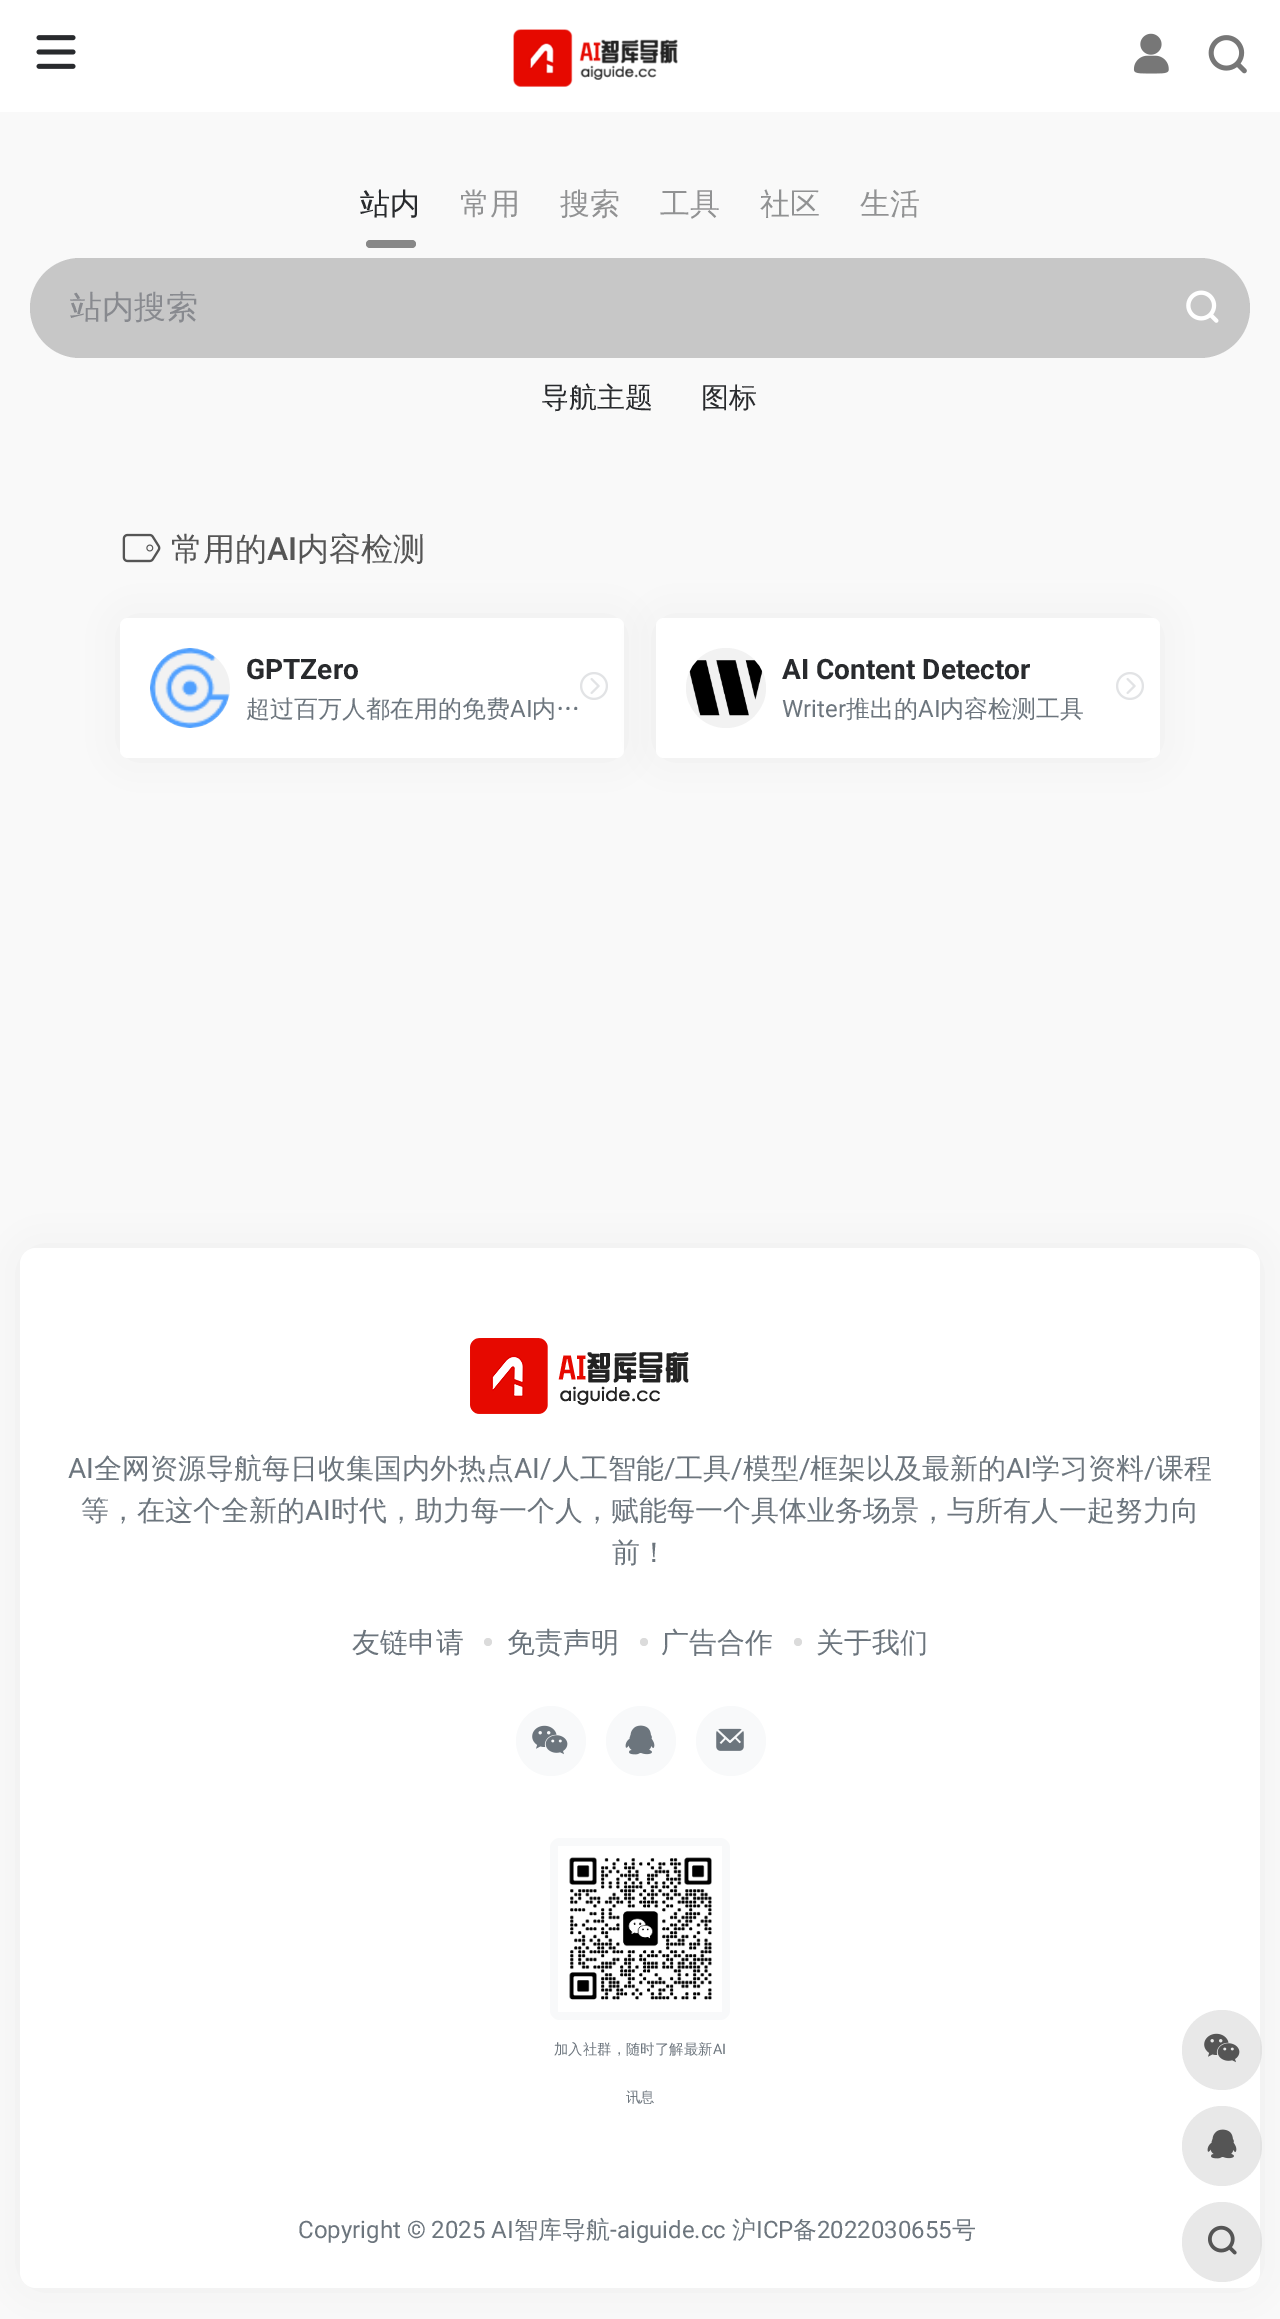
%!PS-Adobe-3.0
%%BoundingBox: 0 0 1280 2319
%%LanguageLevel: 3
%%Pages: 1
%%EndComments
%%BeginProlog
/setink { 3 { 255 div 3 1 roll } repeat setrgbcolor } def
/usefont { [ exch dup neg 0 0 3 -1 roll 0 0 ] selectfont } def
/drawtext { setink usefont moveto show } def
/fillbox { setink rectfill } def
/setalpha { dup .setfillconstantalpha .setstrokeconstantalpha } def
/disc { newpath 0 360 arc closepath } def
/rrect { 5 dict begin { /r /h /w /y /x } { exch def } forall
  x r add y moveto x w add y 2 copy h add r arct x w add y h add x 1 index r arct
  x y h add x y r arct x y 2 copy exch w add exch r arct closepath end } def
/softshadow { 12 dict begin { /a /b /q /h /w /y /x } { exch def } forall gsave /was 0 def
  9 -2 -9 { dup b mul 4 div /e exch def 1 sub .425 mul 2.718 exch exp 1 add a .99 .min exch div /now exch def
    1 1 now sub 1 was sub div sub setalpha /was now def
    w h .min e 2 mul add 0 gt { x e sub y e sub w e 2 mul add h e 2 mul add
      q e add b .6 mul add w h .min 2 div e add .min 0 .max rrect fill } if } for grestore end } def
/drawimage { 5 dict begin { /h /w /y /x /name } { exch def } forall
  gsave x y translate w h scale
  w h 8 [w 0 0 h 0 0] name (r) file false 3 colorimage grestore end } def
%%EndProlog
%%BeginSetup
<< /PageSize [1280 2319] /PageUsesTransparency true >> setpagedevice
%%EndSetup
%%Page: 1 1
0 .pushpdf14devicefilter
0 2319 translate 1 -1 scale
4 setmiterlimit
0 0 1280 2319 249 249 249 fillbox
0 0 1280 112 255 255 255 fillbox
(assets/img1.rgb) 36 35 40 34 drawimage
(assets/img2.rgb) 513 29 165 58 drawimage
(assets/img3.rgb) 1133 33 36 41 drawimage
(assets/img4.rgb) 1208 35 39 39 drawimage
(站内) 360 214 /WenQuanYiZenHei-Medium 30 40 42 45 drawtext
(常用) 460 214 /WenQuanYiZenHei-Medium 30 145 146 147 drawtext
(搜索) 560 214 /WenQuanYiZenHei-Medium 30 145 146 147 drawtext
(工具) 660 214 /WenQuanYiZenHei-Medium 30 145 146 147 drawtext
(社区) 760 214 /WenQuanYiZenHei-Medium 30 145 146 147 drawtext
(生活) 860 214 /WenQuanYiZenHei-Medium 30 145 146 147 drawtext
136 136 136 setink
366 240 50 8 4 rrect fill
199 199 199 setink
30 258 1220 100 50 rrect fill
(站内搜索) 70 318 /WenQuanYiZenHei-Medium 32 136 138 143 drawtext
(assets/img5.rgb) 1186 290 33 33 drawimage
(导航主题) 541 407 /WenQuanYiZenHei-Medium 28 40 42 45 drawtext
(图标) 701 407 /WenQuanYiZenHei-Medium 28 40 42 45 drawtext
(assets/img6.rgb) 122 533 39 30 drawimage
(常用的) 171 560 /WenQuanYiZenHei-Medium 32 85 85 85 drawtext
(AI) 267 560 /Roboto-Medium 32 85 85 85 drawtext
(内容检测) 297 560 /WenQuanYiZenHei-Medium 32 85 85 85 drawtext
158 158 158 setink
130 628 484 120 0 20 0.2 softshadow
255 255 255 setink
120 618 504 140 8 rrect fill
242 242 242 setink
190 688 40 disc fill
(assets/img7.rgb) 150 648 80 80 drawimage
(GPTZero) 246 679 /Roboto-Bold 28 40 42 45 drawtext
(超过百万人都在用的免费) 246 717 /WenQuanYiZenHei-Medium 24 108 117 125 drawtext
(AI) 510 717 /Roboto-Regular 24 108 117 125 drawtext
(内…) 532 717 /WenQuanYiZenHei-Medium 24 108 117 125 drawtext
(assets/img8.rgb) 580 672 28 28 drawimage
158 158 158 setink
666 628 484 120 0 20 0.2 softshadow
255 255 255 setink
656 618 504 140 8 rrect fill
242 242 242 setink
726 688 40 disc fill
(assets/img9.rgb) 689 660 74 56 drawimage
(AI Content Detector) 782 679 /Roboto-Bold 28 40 42 45 drawtext
(Writer) 782 717 /Roboto-Regular 24 108 117 125 drawtext
(推出的) 846 717 /WenQuanYiZenHei-Medium 24 108 117 125 drawtext
(AI) 918 717 /Roboto-Regular 24 108 117 125 drawtext
(内容检测工具) 940 717 /WenQuanYiZenHei-Medium 24 108 117 125 drawtext
(assets/img8.rgb) 1116 672 28 28 drawimage
158 158 158 setink
30 1258 1220 1020 6 20 0.2 softshadow
255 255 255 setink
20 1248 1240 1040 16 rrect fill
(assets/img10.rgb) 470 1338 219 76 drawimage
(AI) 68 1478 /Roboto-Regular 28 108 117 125 drawtext
(全网资源导航每日收集国内外热点) 94 1478 /WenQuanYiZenHei-Medium 28 108 117 125 drawtext
(AI/) 514 1478 /Roboto-Regular 28 108 117 125 drawtext
(人工智能) 552 1478 /WenQuanYiZenHei-Medium 28 108 117 125 drawtext
(/) 664 1478 /Roboto-Regular 28 108 117 125 drawtext
(工具) 675 1478 /WenQuanYiZenHei-Medium 28 108 117 125 drawtext
(/) 731 1478 /Roboto-Regular 28 108 117 125 drawtext
(模型) 743 1478 /WenQuanYiZenHei-Medium 28 108 117 125 drawtext
(/) 799 1478 /Roboto-Regular 28 108 117 125 drawtext
(框架以及最新的) 810 1478 /WenQuanYiZenHei-Medium 28 108 117 125 drawtext
(AI) 1006 1478 /Roboto-Regular 28 108 117 125 drawtext
(学习资料) 1032 1478 /WenQuanYiZenHei-Medium 28 108 117 125 drawtext
(/) 1144 1478 /Roboto-Regular 28 108 117 125 drawtext
(课程) 1156 1478 /WenQuanYiZenHei-Medium 28 108 117 125 drawtext
(等，在这个全新的) 81 1520 /WenQuanYiZenHei-Medium 28 108 117 125 drawtext
(AI) 305 1520 /Roboto-Regular 28 108 117 125 drawtext
(时代，助力每一个人，赋能每一个具体业务场景，与所有人一起努力向) 331 1520 /WenQuanYiZenHei-Medium 28 108 117 125 drawtext
(前！) 612 1562 /WenQuanYiZenHei-Medium 28 108 117 125 drawtext
(友链申请) 352 1652 /WenQuanYiZenHei-Medium 28 108 117 125 drawtext
219 219 219 setink
488 1642 4 disc fill
(免责声明) 507 1652 /WenQuanYiZenHei-Medium 28 108 117 125 drawtext
219 219 219 setink
644 1642 4 disc fill
(广告合作) 661 1652 /WenQuanYiZenHei-Medium 28 108 117 125 drawtext
219 219 219 setink
798 1642 4 disc fill
(关于我们) 816 1652 /WenQuanYiZenHei-Medium 28 108 117 125 drawtext
248 249 250 setink
551 1741 35 disc fill
(assets/img11.rgb) 532 1725 36 30 drawimage
641 1741 35 disc fill
(assets/img12.rgb) 625 1725 30 30 drawimage
731 1741 35 disc fill
(assets/img13.rgb) 716 1728 28 23 drawimage
550 1838 180 182 10 rrect fill
(assets/img14.rgb) 558 1846 164 166 drawimage
(加入社群，随时了解最新) 554 2054 /WenQuanYiZenHei-Medium 14.4 108 117 125 drawtext
(AI) 713 2054 /Roboto-Regular 14.4 108 117 125 drawtext
(讯息) 626 2102 /WenQuanYiZenHei-Medium 14.4 108 117 125 drawtext
(Copyright © 2025 AI) 298 2238 /Roboto-Regular 24 108 117 125 drawtext
(智库导航) 514 2238 /WenQuanYiZenHei-Medium 24 108 117 125 drawtext
(-aiguide.cc) 610 2238 /Roboto-Regular 24 108 117 125 drawtext
(沪) 732 2238 /WenQuanYiZenHei-Medium 24 108 117 125 drawtext
(ICP) 756 2238 /Roboto-Regular 24 108 117 125 drawtext
(备) 793 2238 /WenQuanYiZenHei-Medium 24 108 117 125 drawtext
(2022030655) 817 2238 /Roboto-Regular 24 108 117 125 drawtext
(号) 952 2238 /WenQuanYiZenHei-Medium 24 108 117 125 drawtext
0.5 setalpha
210 210 210 setink
1222 2050 40 disc fill
1 setalpha
(assets/img15.rgb) 1204 2033 36 30 drawimage
0.5 setalpha
1222 2146 40 disc fill
1 setalpha
(assets/img16.rgb) 1207 2129 30 30 drawimage
0.5 setalpha
1222 2242 40 disc fill
1 setalpha
(assets/img17.rgb) 1208 2225 29 30 drawimage
.poppdf14devicefilter showpage
%%EOF
